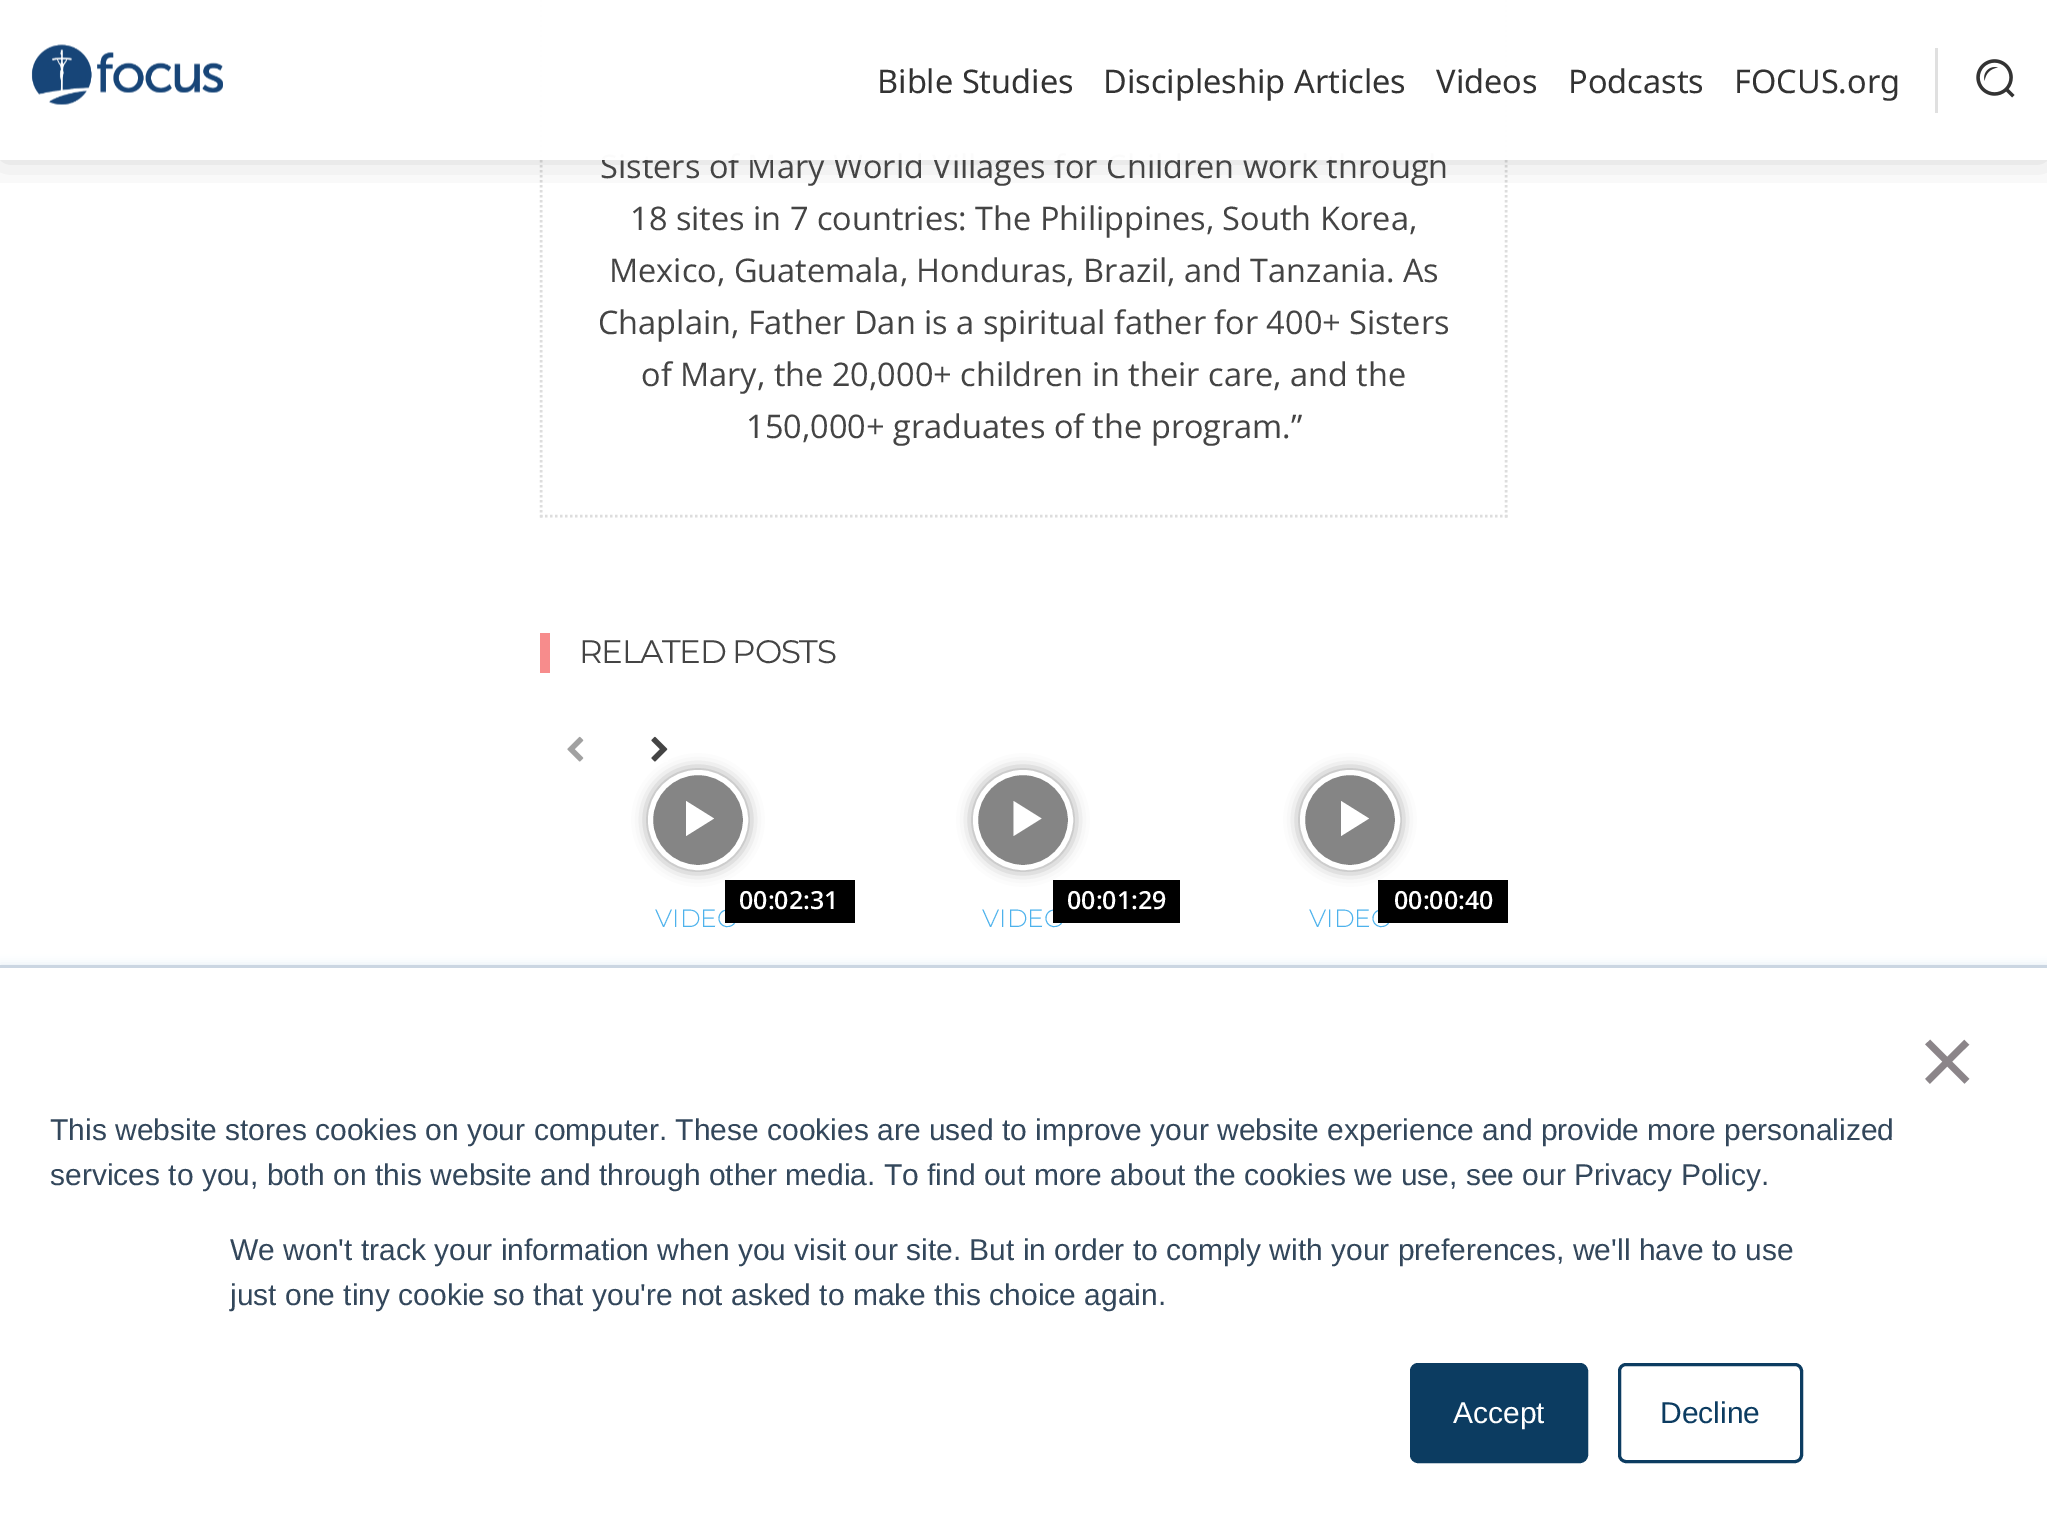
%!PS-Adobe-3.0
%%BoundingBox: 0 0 2047 1527
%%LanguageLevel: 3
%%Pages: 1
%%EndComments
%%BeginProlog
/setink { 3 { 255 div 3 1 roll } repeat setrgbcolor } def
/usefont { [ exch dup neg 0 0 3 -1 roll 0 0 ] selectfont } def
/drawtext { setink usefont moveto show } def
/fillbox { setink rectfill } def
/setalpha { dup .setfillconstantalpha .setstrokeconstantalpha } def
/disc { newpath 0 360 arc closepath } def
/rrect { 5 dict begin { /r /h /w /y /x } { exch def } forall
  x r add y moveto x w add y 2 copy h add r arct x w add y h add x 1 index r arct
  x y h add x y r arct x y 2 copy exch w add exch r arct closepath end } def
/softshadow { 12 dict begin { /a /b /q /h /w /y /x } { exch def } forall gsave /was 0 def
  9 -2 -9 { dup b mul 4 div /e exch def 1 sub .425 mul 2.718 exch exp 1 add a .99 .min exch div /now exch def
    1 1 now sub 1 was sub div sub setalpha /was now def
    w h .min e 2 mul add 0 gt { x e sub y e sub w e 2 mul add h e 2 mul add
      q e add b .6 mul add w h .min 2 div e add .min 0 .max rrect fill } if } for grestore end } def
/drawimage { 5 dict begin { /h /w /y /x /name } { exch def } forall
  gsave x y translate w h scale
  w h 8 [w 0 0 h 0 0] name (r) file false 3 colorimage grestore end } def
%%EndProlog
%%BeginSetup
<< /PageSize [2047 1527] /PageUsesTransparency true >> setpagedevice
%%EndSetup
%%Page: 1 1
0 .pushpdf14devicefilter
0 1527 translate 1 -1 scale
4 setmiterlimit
0 0 2047 1527 255 255 255 fillbox
221 221 221 setink
2.5 setlinewidth
[2.5 2.5] 0 setdash
1506 -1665 moveto 1506 517.5 lineto stroke
540 516 moveto 1507.5 516 lineto stroke
541 -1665 moveto 541 517.5 lineto stroke
gsave
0 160 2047 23 rectclip
0 0 0 setink
0 0 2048 160 0 20 0.16 softshadow
grestore
(Sisters of Mary World Villages for Children work through) 600 178 /OpenSans-Regular 32.5 68 68 68 drawtext
0.98 setalpha
539 0 969 160 255 255 255 fillbox
1 setalpha
(assets/img1.rgb) 31 44 192 61 drawimage
(Bible Studies) 877 93 /NotoSans-Regular 32.5 51 51 51 drawtext
(Discipleship Articles) 1103 93 /NotoSans-Regular 32.5 51 51 51 drawtext
(Videos) 1436 93 /NotoSans-Regular 32.5 51 51 51 drawtext
(Podcasts) 1568 93 /NotoSans-Regular 32.5 51 51 51 drawtext
(FOCUS.org) 1734 93 /NotoSans-Regular 32.5 51 51 51 drawtext
1935 48 3 65 224 224 224 fillbox
(assets/img2.rgb) 1976 59 39 39 drawimage
(18 sites in 7 countries: The Philippines, South Korea,) 630 230 /OpenSans-Regular 32.5 68 68 68 drawtext
(Mexico, Guatemala, Honduras, Brazil, and Tanzania. As) 609 282 /OpenSans-Regular 32.5 68 68 68 drawtext
(Chaplain, Father Dan is a spiritual father for 400+ Sisters) 598 334 /OpenSans-Regular 32.5 68 68 68 drawtext
(of Mary, the 20,000+ children in their care, and the) 641 386 /OpenSans-Regular 32.5 68 68 68 drawtext
(150,000+ graduates of the program.”) 746 438 /OpenSans-Regular 32.5 68 68 68 drawtext
540 633 10 40 247 140 140 fillbox
/Montserrat-Regular 32.5 usefont
68 68 68 setink
579 663 moveto -1.25 0 (RELATED POSTS) ashow
(assets/img3.rgb) 567 736 17 26 drawimage
gsave
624 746 moveto 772 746 lineto 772 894 lineto 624 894 lineto closepath 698 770 moveto 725.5 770 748 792.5 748 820 curveto 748 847.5 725.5 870 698 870 curveto 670.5 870 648 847.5 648 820 curveto 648 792.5 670.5 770 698 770 curveto closepath eoclip newpath
0 0 0 setink
648 770 100 100 50 7.5 0.4 softshadow
grestore
(assets/img4.rgb) 651 736 17 26 drawimage
0.48 setalpha
0 0 0 setink
698 820 47.5 disc fill
1 setalpha
255 255 255 setink
5 setlinewidth
[] 0 setdash
698 820 47.5 disc stroke
686 801 moveto 686 836 lineto 714 818.5 lineto closepath fill
(VIDEO) 655 927 /Montserrat-Light 25 77 178 236 drawtext
725 880 130 43 0 0 0 fillbox
(00:02:31) 739 909 /OpenSans-SemiBold 25 255 255 255 drawtext
gsave
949 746 moveto 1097 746 lineto 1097 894 lineto 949 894 lineto closepath 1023 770 moveto 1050.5 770 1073 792.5 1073 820 curveto 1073 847.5 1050.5 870 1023 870 curveto 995.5 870 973 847.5 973 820 curveto 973 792.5 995.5 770 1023 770 curveto closepath eoclip newpath
0 0 0 setink
973 770 100 100 50 7.5 0.4 softshadow
grestore
0.48 setalpha
0 0 0 setink
1023 820 47.5 disc fill
1 setalpha
255 255 255 setink
1023 820 47.5 disc stroke
1013.5 801 moveto 1013.5 836 lineto 1041.5 818.5 lineto closepath fill
(VIDEO) 982 927 /Montserrat-Light 25 77 178 236 drawtext
1053 880 127 43 0 0 0 fillbox
(00:01:29) 1067 909 /OpenSans-SemiBold 25 255 255 255 drawtext
gsave
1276 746 moveto 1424 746 lineto 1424 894 lineto 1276 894 lineto closepath 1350 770 moveto 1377.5 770 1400 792.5 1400 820 curveto 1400 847.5 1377.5 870 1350 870 curveto 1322.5 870 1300 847.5 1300 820 curveto 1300 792.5 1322.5 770 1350 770 curveto closepath eoclip newpath
0 0 0 setink
1300 770 100 100 50 7.5 0.4 softshadow
grestore
0.48 setalpha
0 0 0 setink
1350 820 47.5 disc fill
1 setalpha
255 255 255 setink
1350 820 47.5 disc stroke
1341 801 moveto 1341 836 lineto 1369 818.5 lineto closepath fill
(VIDEO) 1309 927 /Montserrat-Light 25 77 178 236 drawtext
1378 880 130 43 0 0 0 fillbox
(00:00:40) 1394 909 /OpenSans-SemiBold 25 255 255 255 drawtext
234 240 246 setink
0 963 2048 562 0 4 1 softshadow
0 968 2047 559 255 255 255 fillbox
0 965 2047 3 203 214 226 fillbox
(×) 1918 1095 /LiberationSans-Regular 100 139 133 137 drawtext
(This website stores cookies on your computer. These cookies are used to improve your website experience and provide more personalized) 50 1140 /LiberationSans-Regular 30 51 71 91 drawtext
(services to you, both on this website and through other media. To find out more about the cookies we use, see our Privacy Policy.) 50 1185 /LiberationSans-Regular 30 51 71 91 drawtext
(We won't track your information when you visit our site. But in order to comply with your preferences, we'll have to use) 230 1260 /LiberationSans-Regular 30 51 71 91 drawtext
(just one tiny cookie so that you're not asked to make this choice again.) 230 1305 /LiberationSans-Regular 30 51 71 91 drawtext
12 60 97 setink
1411.5 1364.5 175 97 6.5 rrect gsave fill grestore
3 setlinewidth
stroke
(Accept) 1453 1423 /LiberationSans-Regular 30 255 255 255 drawtext
12 60 97 setink
1619.5 1364.5 182 97 6.5 rrect stroke
(Decline) 1660 1423 /LiberationSans-Regular 30 12 60 97 drawtext
.poppdf14devicefilter showpage
%%EOF
